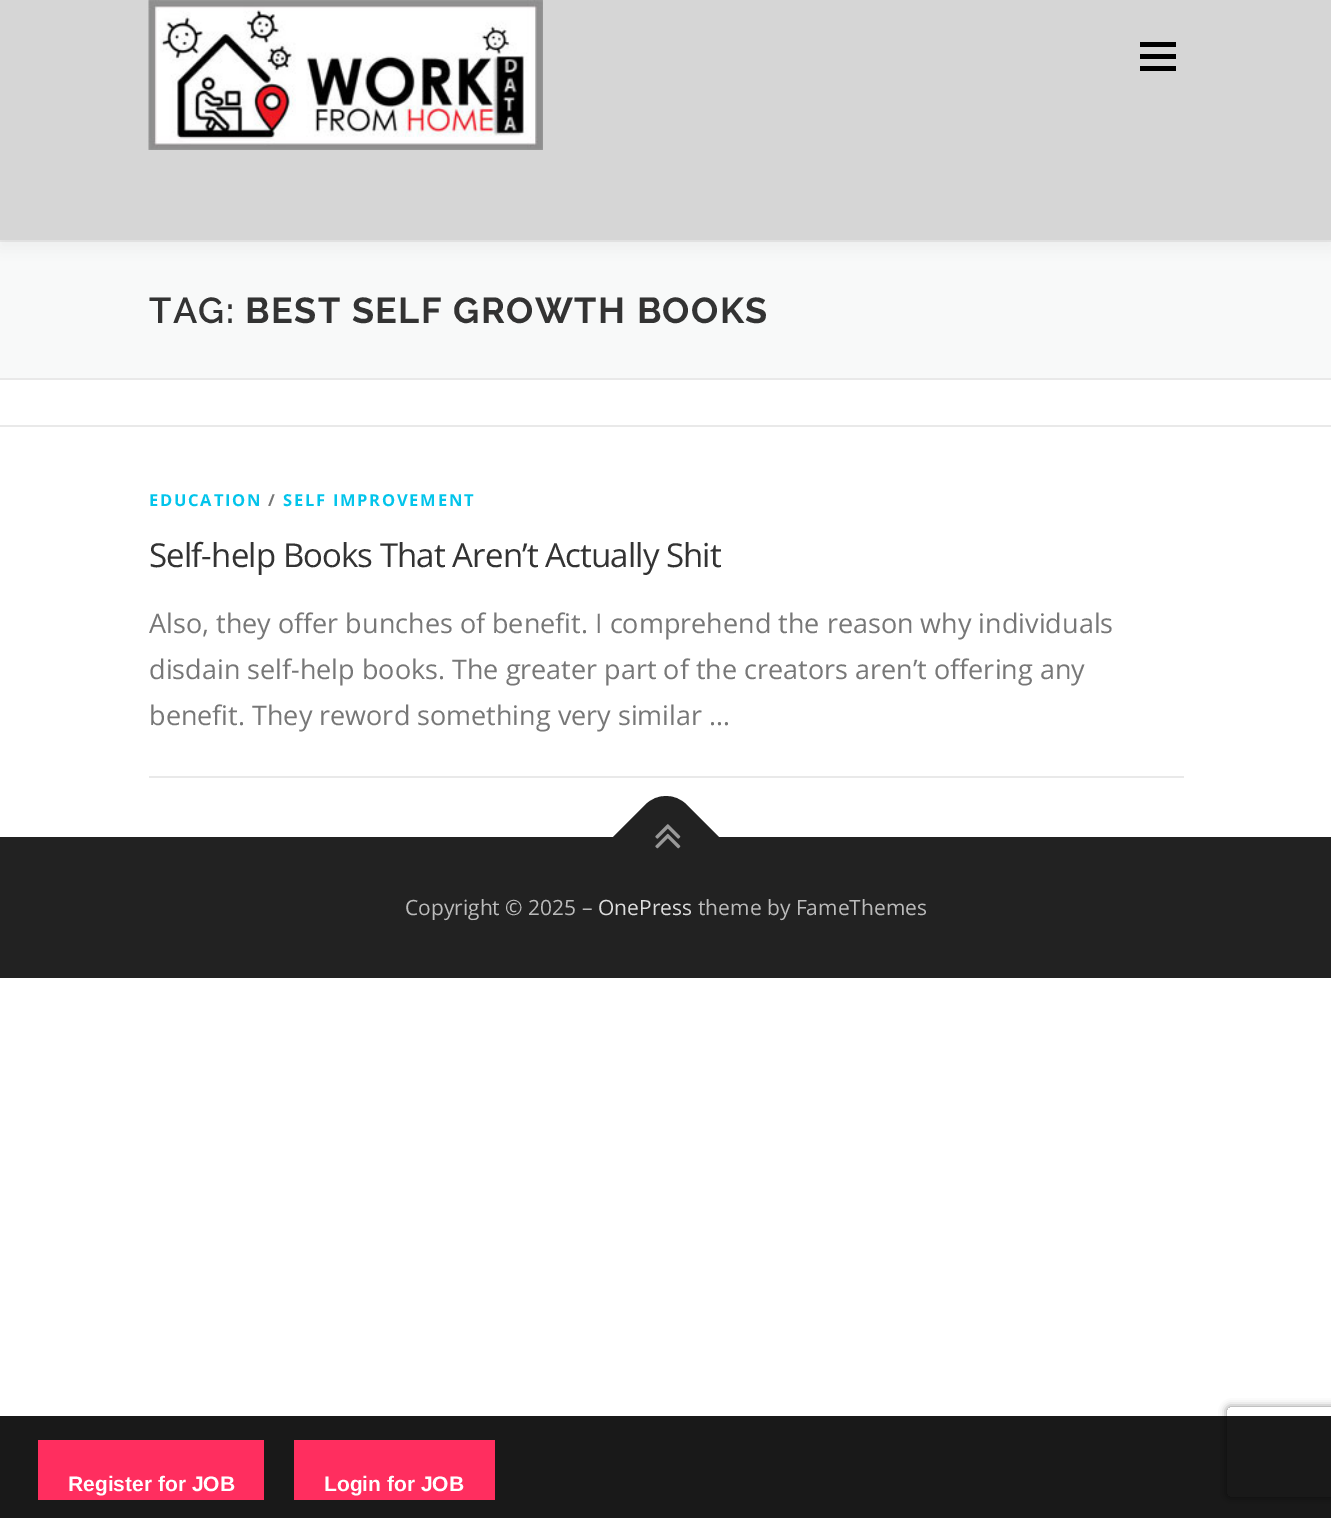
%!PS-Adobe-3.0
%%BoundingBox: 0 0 1331 1518
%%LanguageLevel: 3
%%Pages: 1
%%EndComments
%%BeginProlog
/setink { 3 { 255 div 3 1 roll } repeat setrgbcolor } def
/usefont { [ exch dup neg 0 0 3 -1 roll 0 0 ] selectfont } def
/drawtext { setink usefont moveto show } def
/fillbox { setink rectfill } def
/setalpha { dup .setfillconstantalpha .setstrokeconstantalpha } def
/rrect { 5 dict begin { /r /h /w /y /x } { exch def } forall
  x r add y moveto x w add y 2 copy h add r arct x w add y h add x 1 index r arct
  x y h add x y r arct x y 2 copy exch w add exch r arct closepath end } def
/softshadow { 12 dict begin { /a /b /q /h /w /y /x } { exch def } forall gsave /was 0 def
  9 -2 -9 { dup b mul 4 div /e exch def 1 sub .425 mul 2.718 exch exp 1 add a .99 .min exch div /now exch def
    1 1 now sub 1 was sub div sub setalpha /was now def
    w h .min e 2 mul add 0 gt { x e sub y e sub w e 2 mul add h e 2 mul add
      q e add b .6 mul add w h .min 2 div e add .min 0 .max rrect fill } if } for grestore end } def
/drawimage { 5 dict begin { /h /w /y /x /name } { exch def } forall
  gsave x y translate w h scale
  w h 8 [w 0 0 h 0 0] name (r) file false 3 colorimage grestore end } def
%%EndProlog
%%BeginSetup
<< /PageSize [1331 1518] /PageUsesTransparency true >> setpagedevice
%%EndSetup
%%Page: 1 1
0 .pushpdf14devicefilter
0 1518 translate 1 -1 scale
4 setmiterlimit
0 0 1331 1518 255 255 255 fillbox
0 242 1331 136 248 249 249 fillbox
0 240 1331 2 233 233 233 fillbox
50 50 50 setink
0 8 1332 240 0 7.5 0.06 softshadow
0 0 1331 240 214 214 214 fillbox
(assets/img1.rgb) 148 0 395 150 drawimage
1140 54 36 5 0 0 0 fillbox
1140 42 36 5 0 0 0 fillbox
1140 66 36 5 0 0 0 fillbox
0 378 1331 2 233 233 233 fillbox
/Raleway-SemiBold 36 usefont
51 51 51 setink
149 323 moveto 1.5 0 (TAG:) ashow
/Raleway-Bold 36 usefont
245 323 moveto 1.5 0 (BEST SELF GROWTH BOOKS) ashow
0 425 1331 2 233 233 233 fillbox
149 776 1035 2 233 233 233 fillbox
/OpenSans-Bold 16.5 usefont
3 196 235 setink
149 506 moveto 1.75 0 (EDUCATION) ashow
119 119 119 setink
268 506 moveto 1.75 0 (/) ashow
3 196 235 setink
283 506 moveto 1.75 0 (SELF IMPROVEMENT) ashow
/OpenSans-Regular 33 usefont
51 51 51 setink
149 567 moveto -0.9 0 (Self-help Books That Aren’t Actually Shit) ashow
(Also, they offer bunches of benefit. I comprehend the reason why individuals) 149 633 /OpenSans-Regular 27 119 119 119 drawtext
(disdain self-help books. The greater part of the creators aren’t offering any) 149 679 /OpenSans-Regular 27 119 119 119 drawtext
(benefit. They reword something very similar …) 149 725 /OpenSans-Regular 27 119 119 119 drawtext
0 837 1331 141 34 34 34 fillbox
613 837 moveto 645 805 lineto 657 793 675 793 687 805 curveto 719 837 lineto 666 890 lineto closepath fill
(assets/img2.rgb) 655 824 26 25 drawimage
(Copyright © 2025 –) 405 915 /OpenSans-Regular 21 187 187 187 drawtext
(OnePress) 598 915 /OpenSans-Regular 21 221 221 221 drawtext
(theme by FameThemes) 698 915 /OpenSans-Regular 21 187 187 187 drawtext
gsave
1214 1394 moveto 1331 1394 lineto 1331 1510 lineto 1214 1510 lineto closepath 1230 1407 moveto 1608 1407 lineto 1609.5 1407 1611 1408.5 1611 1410 curveto 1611 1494 lineto 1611 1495.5 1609.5 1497 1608 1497 curveto 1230 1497 lineto 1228.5 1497 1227 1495.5 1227 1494 curveto 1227 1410 lineto 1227 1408.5 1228.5 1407 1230 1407 curveto closepath eoclip newpath
128 128 128 setink
1227 1407 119 90 3 4 1 softshadow
grestore
0.9 setalpha
0 1416 1331 102 0 0 0 fillbox
1 setalpha
38 1440 226 60 255 46 95 fillbox
(Register for JOB) 68 1491 /LiberationSans-Bold 21 255 255 255 drawtext
294 1440 201 60 255 46 95 fillbox
(Login for JOB) 324 1491 /LiberationSans-Bold 21 255 255 255 drawtext
.poppdf14devicefilter showpage
%%EOF
